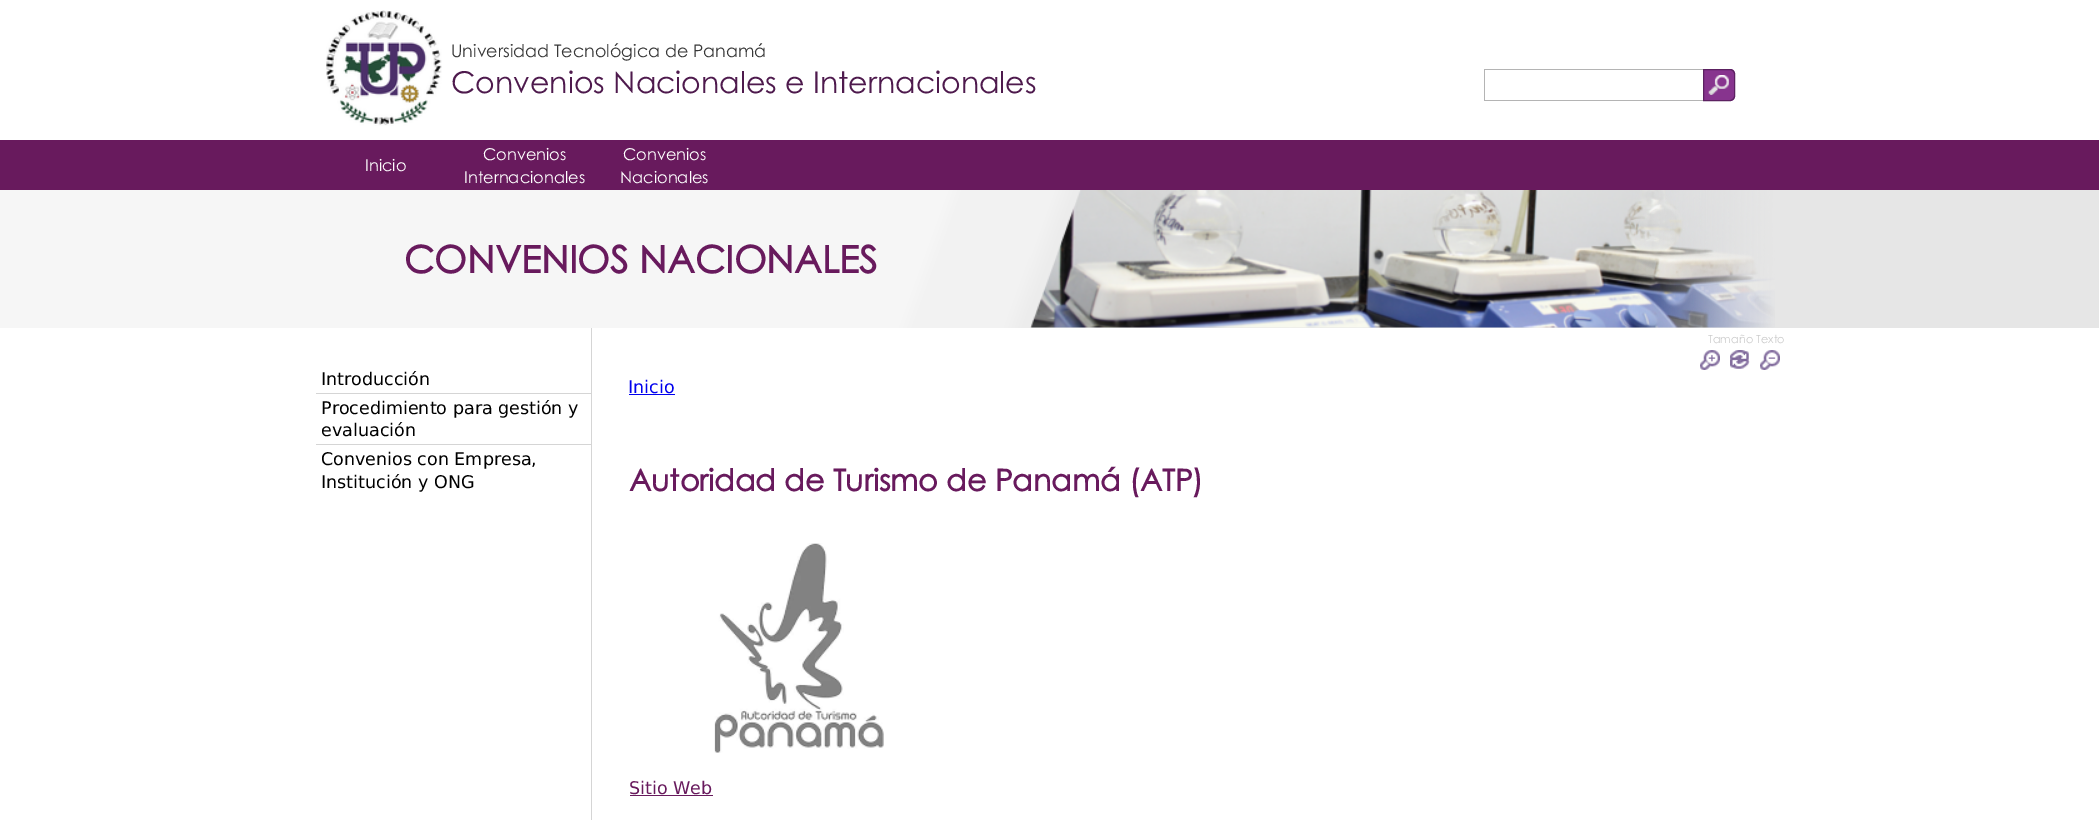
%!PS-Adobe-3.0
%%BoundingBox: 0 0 2099 820
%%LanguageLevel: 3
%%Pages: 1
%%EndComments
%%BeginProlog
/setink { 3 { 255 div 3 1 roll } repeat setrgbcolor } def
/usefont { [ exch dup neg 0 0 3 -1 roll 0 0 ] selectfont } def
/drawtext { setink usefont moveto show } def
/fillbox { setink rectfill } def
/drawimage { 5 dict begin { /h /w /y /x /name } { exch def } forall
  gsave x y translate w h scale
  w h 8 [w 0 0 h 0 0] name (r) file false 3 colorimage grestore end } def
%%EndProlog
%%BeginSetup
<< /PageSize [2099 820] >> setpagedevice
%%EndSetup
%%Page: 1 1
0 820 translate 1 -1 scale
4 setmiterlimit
0 0 2099 820 255 255 255 fillbox
(assets/img1.rgb) 326 10 116 116 drawimage
(Universidad Tecnológica de Panamá) 451 57 /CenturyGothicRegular-Regular 17.5 56 56 56 drawtext
(Convenios Nacionales e Internacionales) 451 93 /CenturyGothicRegular-Regular 30 78 26 77 drawtext
1484 69 219 1 180 180 180 fillbox
1484 100 219 1 180 180 180 fillbox
1484 69 1 32 180 180 180 fillbox
135 52 142 setink
1703 69 moveto 1730 69 lineto 1733 69 1735 71 1735 74 curveto 1735 96 lineto 1735 99 1733 101 1730 101 curveto 1703 101 lineto closepath fill
(assets/img2.rgb) 1708 75 21 20 drawimage
92 33 97 setink
1703.5 69.5 moveto 1730 69.5 lineto 1732.5 69.5 1734.5 71.5 1734.5 74 curveto 1734.5 96 lineto 1734.5 98.5 1732.5 100.5 1730 100.5 curveto 1703.5 100.5 lineto closepath stroke
0 140 2099 50 104 26 93 fillbox
(Inicio) 365 171 /CenturyGothicRegular-Regular 16.25 255 255 255 drawtext
(Convenios) 483 160 /CenturyGothicRegular-Regular 16.25 255 255 255 drawtext
(Internacionales) 464 183 /CenturyGothicRegular-Regular 16.25 255 255 255 drawtext
(Convenios) 623 160 /CenturyGothicRegular-Regular 16.25 255 255 255 drawtext
(Nacionales) 620 183 /CenturyGothicRegular-Regular 16.25 255 255 255 drawtext
gsave 0 190 moveto 2099 190 lineto 2099 328 lineto 0 328 lineto closepath clip newpath
<< /ShadingType 2 /ColorSpace /DeviceRGB /Coords [101 -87 1999 604] /Extend [true true] /Function << /FunctionType 3 /Domain [0 1] /Functions [<< /FunctionType 2 /Domain [0 1] /C0 [0.965 0.965 0.965] /C1 [0.965 0.965 0.965] /N 1 >> << /FunctionType 2 /Domain [0 1] /C0 [0.965 0.965 0.965] /C1 [0.949 0.949 0.949] /N 1 >> << /FunctionType 2 /Domain [0 1] /C0 [0.949 0.949 0.949] /C1 [0.949 0.949 0.949] /N 1 >> << /FunctionType 2 /Domain [0 1] /C0 [0.949 0.949 0.949] /C1 [0.925 0.925 0.925] /N 1 >> << /FunctionType 2 /Domain [0 1] /C0 [0.925 0.925 0.925] /C1 [0.925 0.925 0.925] /N 1 >> << /FunctionType 2 /Domain [0 1] /C0 [0.925 0.925 0.925] /C1 [0.902 0.902 0.902] /N 1 >> << /FunctionType 2 /Domain [0 1] /C0 [0.902 0.902 0.902] /C1 [0.902 0.902 0.902] /N 1 >>] /Bounds [0.44 0.45 0.49 0.5 0.54 0.55] /Encode [0 1 0 1 0 1 0 1 0 1 0 1 0 1] >> >> shfill grestore
(assets/img3.rgb) 1030 190 745 138 drawimage
(CONVENIOS NACIONALES) 404 273 /CenturyGothicRegular-Bold 37.5 104 26 93 drawtext
591 328 1 492 213 213 213 fillbox
316 393 275 1 213 213 213 fillbox
(Introducción) 321 385 /DejaVuSans-Regular 17.5 0 0 0 drawtext
316 444 275 1 213 213 213 fillbox
(Procedimiento para gestión y) 321 414 /DejaVuSans-Regular 17.5 0 0 0 drawtext
(evaluación) 321 436 /DejaVuSans-Regular 17.5 0 0 0 drawtext
(Convenios con Empresa,) 321 465 /DejaVuSans-Regular 17.5 0 0 0 drawtext
(Institución y ONG) 321 488 /DejaVuSans-Regular 17.5 0 0 0 drawtext
(Tamaño Texto) 1708 343 /CenturyGothicRegular-Regular 11.25 204 204 204 drawtext
(assets/img4.rgb) 1700 350 20 20 drawimage
(assets/img5.rgb) 1730 350 20 19 drawimage
(assets/img6.rgb) 1760 350 20 20 drawimage
(Inicio) 628 393 /DejaVuSans-Regular 17.5 0 0 238 drawtext
629 394 46 1 0 0 238 fillbox
(Autoridad de Turismo de Panamá \(ATP\)) 629 491 /CenturyGothicRegular-Bold 30 104 26 93 drawtext
(assets/img7.rgb) 714 543 170 210 drawimage
(Sitio Web) 629 794 /DejaVuSans-Regular 17.5 104 26 93 drawtext
630 795 83 1 104 26 93 fillbox
showpage
%%EOF
